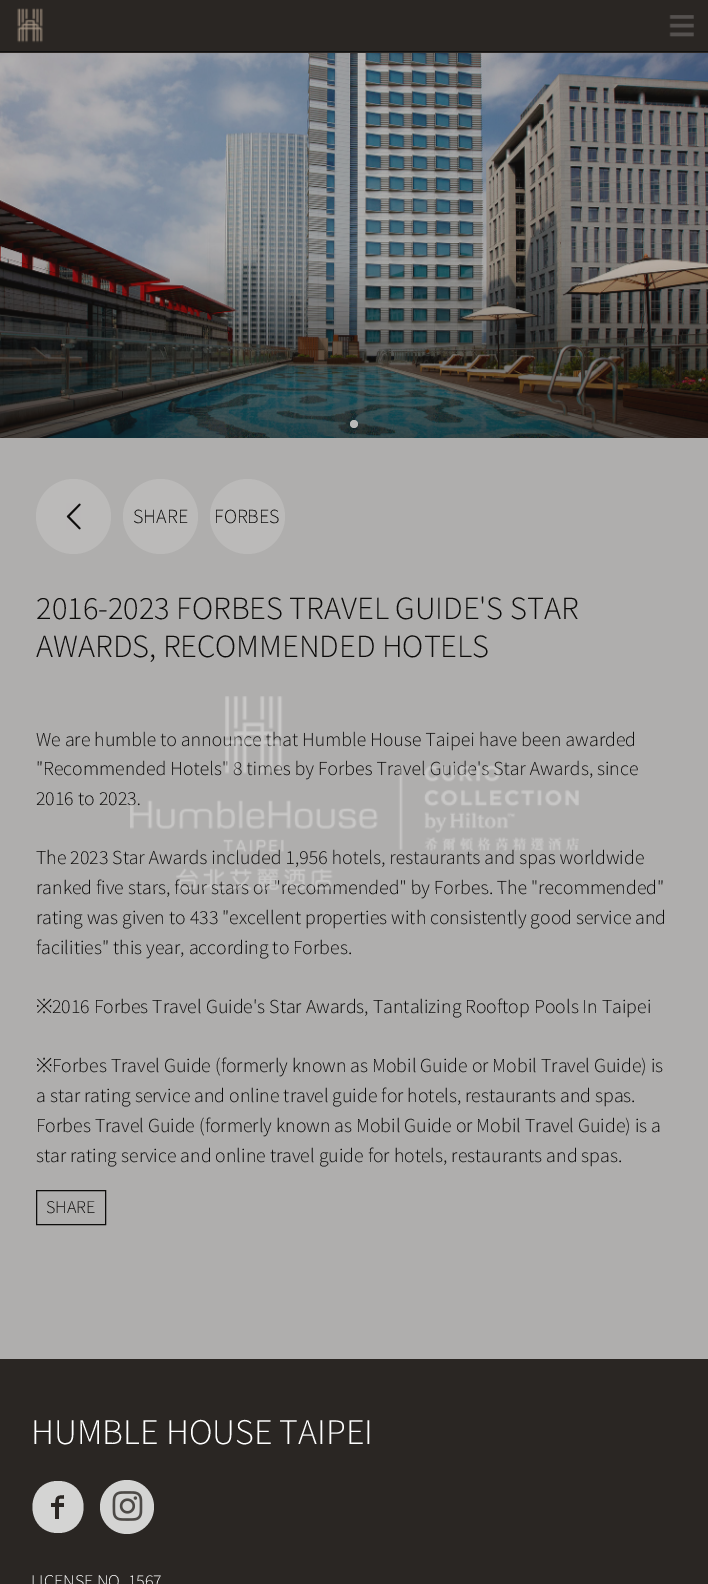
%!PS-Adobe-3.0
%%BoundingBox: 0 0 708 1584
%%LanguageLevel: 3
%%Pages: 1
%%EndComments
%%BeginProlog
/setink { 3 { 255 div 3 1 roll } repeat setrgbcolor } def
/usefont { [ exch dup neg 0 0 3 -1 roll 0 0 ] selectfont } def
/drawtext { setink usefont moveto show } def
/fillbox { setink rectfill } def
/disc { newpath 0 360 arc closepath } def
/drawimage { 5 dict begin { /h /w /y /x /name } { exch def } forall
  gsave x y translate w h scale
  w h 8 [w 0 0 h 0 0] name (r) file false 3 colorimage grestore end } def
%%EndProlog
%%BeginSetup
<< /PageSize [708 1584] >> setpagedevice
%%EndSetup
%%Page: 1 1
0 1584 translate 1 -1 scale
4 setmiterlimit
0 0 708 1584 42 38 35 fillbox
0 51 708 1 17 17 17 fillbox
(assets/img1.rgb) 17 8 26 35 drawimage
(assets/img2.rgb) 669 15 25 22 drawimage
(assets/img3.rgb) 0 53 708 385 drawimage
187 186 185 setink
354 424 4 disc fill
0 438 708 921 175 174 173 fillbox
187 186 185 setink
73.5 516.5 37.5 disc fill
(assets/img4.rgb) 66 503 15 27 drawimage
160.5 516.5 37.5 disc fill
(SHARE) 133 523 /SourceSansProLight-Light 20 13 12 11 drawtext
187 186 185 setink
247.5 516.5 37.5 disc fill
(FORBES) 214 523 /SourceSansProLight-Light 20 13 12 11 drawtext
(2016-2023 FORBES TRAVEL GUIDE'S STAR) 36 619 /SourceSansProLight-Light 32.4 13 12 11 drawtext
(AWARDS, RECOMMENDED HOTELS) 36 657 /SourceSansProLight-Light 32.4 13 12 11 drawtext
(We are humble to announce that Humble House Taipei have been awarded) 36 746 /SourceSansProLight-Light 19.8 13 12 11 drawtext
("Recommended Hotels" 8 times by Forbes Travel Guide's Star Awards, since) 36 775 /SourceSansProLight-Light 19.8 13 12 11 drawtext
(2016 to 2023.) 36 805 /SourceSansProLight-Light 19.8 13 12 11 drawtext
(The 2023 Star Awards included 1,956 hotels, restaurants and spas worldwide) 36 864 /SourceSansProLight-Light 19.8 13 12 11 drawtext
(ranked five stars, four stars or "recommended" by Forbes. The "recommended") 36 894 /SourceSansProLight-Light 19.8 13 12 11 drawtext
(rating was given to 433 "excellent properties with consistently good service and) 36 924 /SourceSansProLight-Light 19.8 13 12 11 drawtext
(facilities" this year, according to Forbes.) 36 954 /SourceSansProLight-Light 19.8 13 12 11 drawtext
(※) 36 1013 /NotoSans-Light 19.8 13 12 11 drawtext
(2016 Forbes Travel Guide's Star Awards, Tantalizing Rooftop Pools In Taipei) 52 1013 /SourceSansProLight-Light 19.8 13 12 11 drawtext
(※) 36 1072 /NotoSans-Light 19.8 13 12 11 drawtext
(Forbes Travel Guide \(formerly known as Mobil Guide or Mobil Travel Guide\) is) 52 1072 /SourceSansProLight-Light 19.8 13 12 11 drawtext
(a star rating service and online travel guide for hotels, restaurants and spas.) 36 1102 /SourceSansProLight-Light 19.8 13 12 11 drawtext
(Forbes Travel Guide \(formerly known as Mobil Guide or Mobil Travel Guide\) is a) 36 1132 /SourceSansProLight-Light 19.8 13 12 11 drawtext
(star rating service and online travel guide for hotels, restaurants and spas.) 36 1162 /SourceSansProLight-Light 19.8 13 12 11 drawtext
36.5 1190.5 69 34 rectstroke
(SHARE) 46 1213 /SourceSansProLight-Light 18 13 12 11 drawtext
(HUMBLE HOUSE TAIPEI) 31 1444 /SourceSansProLight-Light 36 255 255 255 drawtext
212 212 211 setink
58 1481 moveto 24 1481 24 1533 58 1533 curveto 92 1533 92 1481 58 1481 curveto closepath 64 1499 moveto 59 1499 59 1498 59 1503 curveto 64 1503 lineto 64 1507 lineto 59 1507 lineto 59 1519 lineto 55 1519 lineto 55 1507 lineto 51 1507 lineto 51 1503 lineto 55 1503 lineto 55 1496 57 1495 64 1495 curveto closepath fill
127 1507 27 disc fill
(assets/img5.rgb) 112 1491 31 30 drawimage
(LICENSE NO. 1567) 31 1587 /SourceSansProLight-Light 18 255 255 255 drawtext
(assets/img6.rgb) 130 696 449 194 drawimage
showpage
%%EOF
